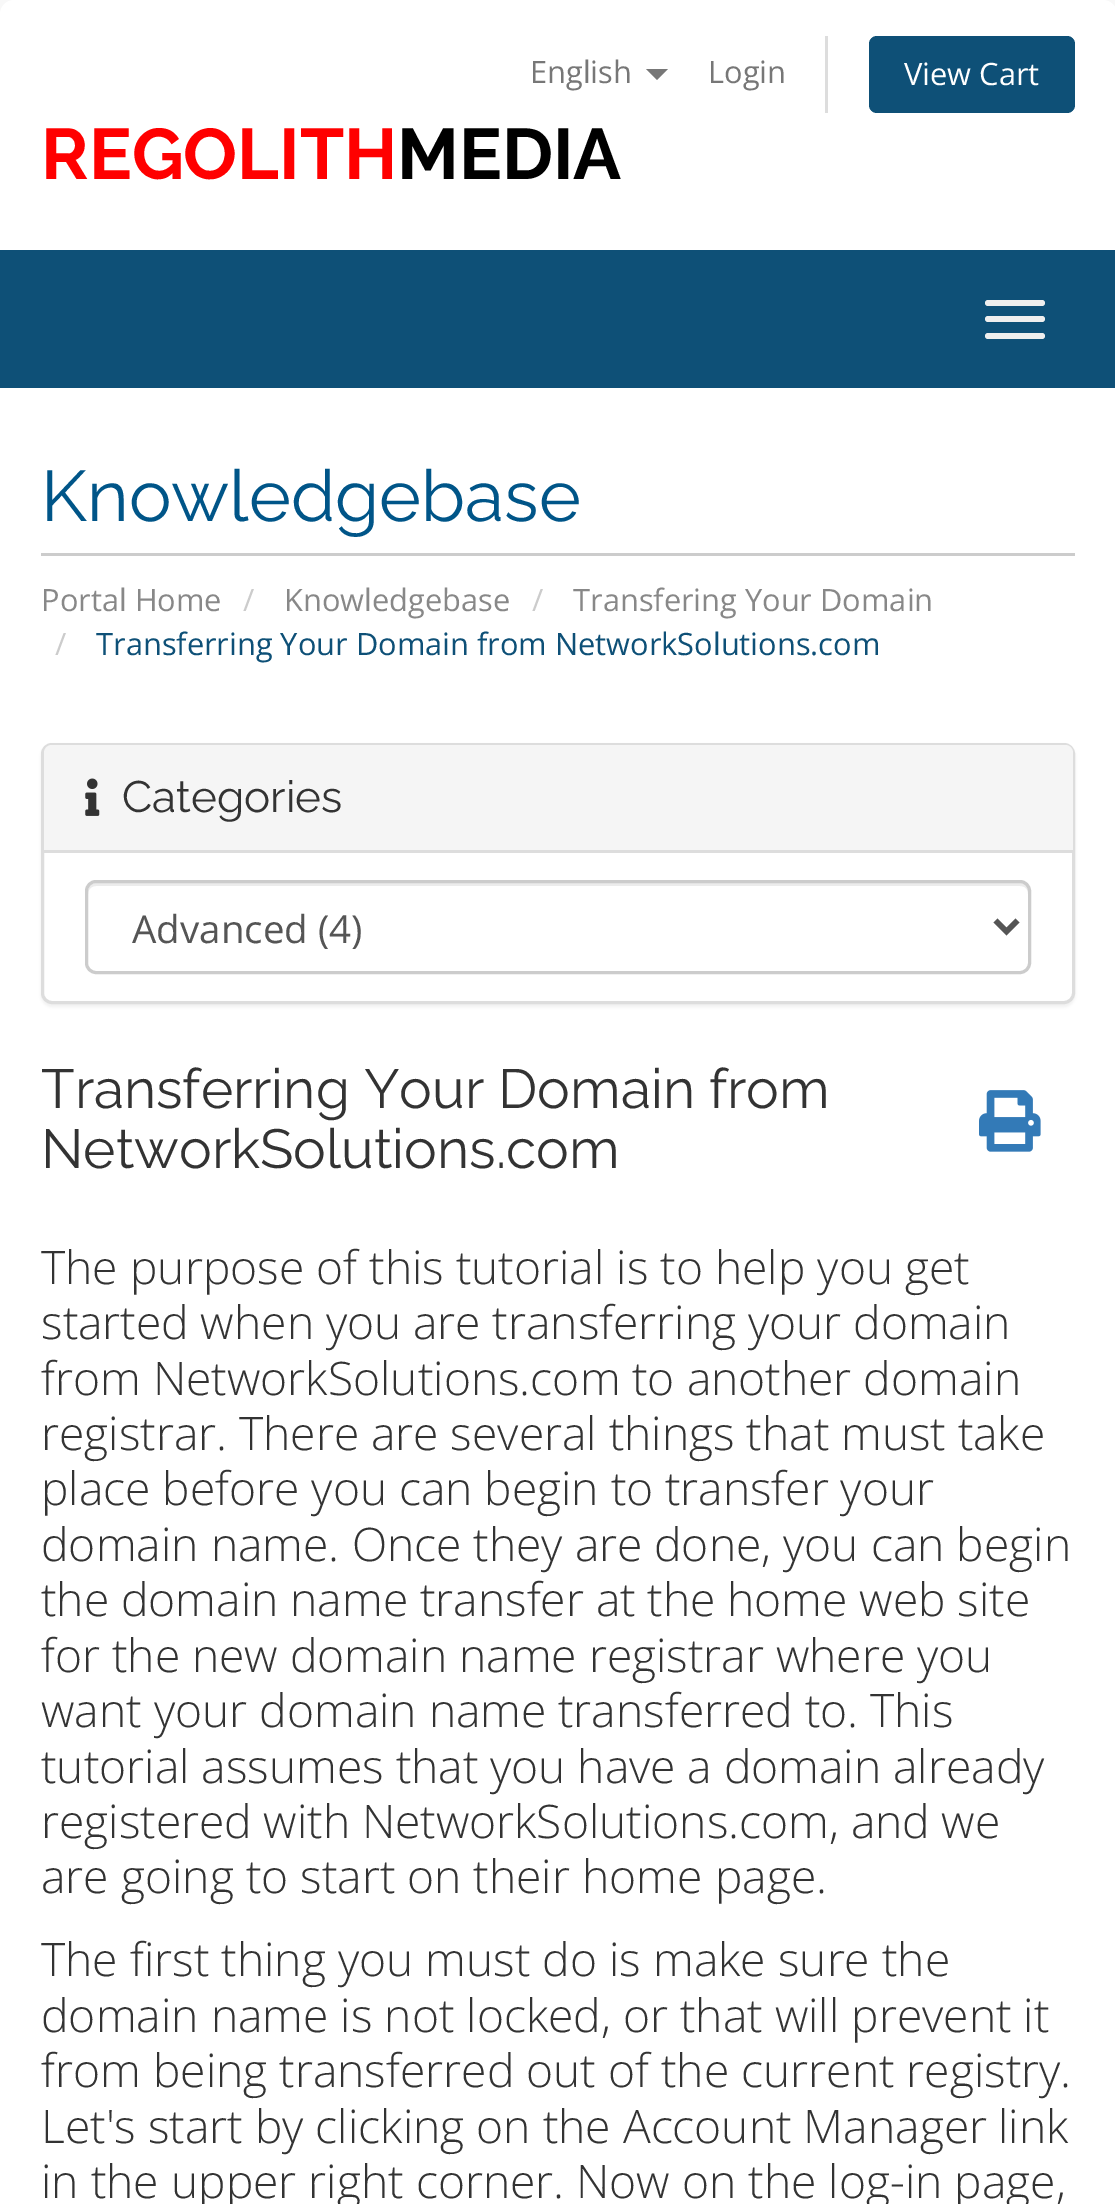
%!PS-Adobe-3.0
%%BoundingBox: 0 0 1115 2204
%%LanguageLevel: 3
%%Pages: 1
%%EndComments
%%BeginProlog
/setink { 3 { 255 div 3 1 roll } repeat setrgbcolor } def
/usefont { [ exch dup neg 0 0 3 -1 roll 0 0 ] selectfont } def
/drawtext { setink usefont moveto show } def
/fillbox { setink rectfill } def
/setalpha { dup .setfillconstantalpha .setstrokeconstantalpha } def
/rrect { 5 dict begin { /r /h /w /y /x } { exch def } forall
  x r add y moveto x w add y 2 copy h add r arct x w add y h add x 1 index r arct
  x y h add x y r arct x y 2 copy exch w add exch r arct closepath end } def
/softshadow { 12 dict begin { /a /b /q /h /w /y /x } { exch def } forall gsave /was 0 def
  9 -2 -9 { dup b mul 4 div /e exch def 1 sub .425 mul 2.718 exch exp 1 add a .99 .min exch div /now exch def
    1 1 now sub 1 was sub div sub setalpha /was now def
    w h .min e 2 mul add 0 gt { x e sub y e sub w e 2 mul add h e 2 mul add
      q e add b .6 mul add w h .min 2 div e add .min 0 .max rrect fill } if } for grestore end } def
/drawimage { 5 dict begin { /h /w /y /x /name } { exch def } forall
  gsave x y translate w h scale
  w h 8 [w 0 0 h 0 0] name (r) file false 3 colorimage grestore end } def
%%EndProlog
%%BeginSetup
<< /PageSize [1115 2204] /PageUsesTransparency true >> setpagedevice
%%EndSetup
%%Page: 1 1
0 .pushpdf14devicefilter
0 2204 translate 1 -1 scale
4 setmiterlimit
0 0 1115 2204 248 248 248 fillbox
255 255 255 setink
14 0 moveto 1103 0 lineto 1110.5 0 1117 6.5 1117 14 curveto 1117 250 lineto 0 250 lineto 0 14 lineto 0 6.5 6.5 0 14 0 curveto closepath fill
(English) 530 83 /OpenSans-Regular 30.8 119 119 119 drawtext
646 69 moveto 668 69 lineto 657 80 lineto closepath fill
(Login) 708 83 /OpenSans-Regular 30.8 119 119 119 drawtext
825 36 3 77 221 221 221 fillbox
14 80 119 setink
869 36 206 77 8 rrect fill
(View Cart) 904 85 /OpenSans-Regular 30.8 255 255 255 drawtext
(REGOLITH) 41 179 /Raleway-Bold 71.5 255 0 0 drawtext
(MEDIA) 397 179 /Raleway-Bold 71.5 0 0 0 drawtext
0 250 1115 138 14 80 119 fillbox
238 238 238 setink
985 300 60 6 3 rrect fill
985 316 60 6 3 rrect fill
985 333 60 6 3 rrect fill
0 388 1115 1816 255 255 255 fillbox
41 553 1034 3 204 204 204 fillbox
(Knowledgebase) 41 521 /Raleway-Regular 71.5 0 85 136 drawtext
(Portal Home) 41 611 /OpenSans-Regular 30.8 136 136 136 drawtext
(/) 243 611 /OpenSans-Regular 30.8 204 204 204 drawtext
(Knowledgebase) 284 611 /OpenSans-Regular 30.8 136 136 136 drawtext
(/) 532 611 /OpenSans-Regular 30.8 204 204 204 drawtext
(Transfering Your Domain) 573 611 /OpenSans-Regular 30.8 136 136 136 drawtext
(/) 55 655 /OpenSans-Regular 30.8 204 204 204 drawtext
(Transferring Your Domain from NetworkSolutions.com) 96 655 /OpenSans-Regular 30.8 14 80 119 drawtext
0 0 0 setink
41 745 1034 262 11 1.5 0.05 softshadow
255 255 255 setink
42.5 744.5 1031 258 9.5 rrect gsave fill grestore
221 221 221 setink
3 setlinewidth
stroke
245 245 245 setink
52 745 moveto 1065 745 lineto 1069.5 745 1073 748.5 1073 753 curveto 1073 853 lineto 44 853 lineto 44 753 lineto 44 748.5 47.5 745 52 745 curveto closepath fill
44 850 1029 3 221 221 221 fillbox
(assets/img1.rgb) 85 778 15 38 drawimage
(Categories) 122 812 /Raleway-Regular 44 51 51 51 drawtext
236 236 236 setink
96 886 moveto 1020 886 lineto 1025 886 1028 889 1028 894 curveto 1028 967 lineto 1029 966 1029 965 1029 963 curveto 1029 891 lineto 1029 887 1025 883 1021 883 curveto 96 883 lineto 92 883 88 887 88 891 curveto 88 894 lineto 88 889 92 886 96 886 curveto closepath fill
204 204 204 setink
86.5 881.5 943 91 9.5 rrect stroke
85 85 85 setink
5.5 setlinewidth
995.5 920.5 moveto 1006.5 931.5 lineto 1017.5 920.5 lineto stroke
(Advanced \(4\)) 132 943 /OpenSans-Regular 38.5 85 85 85 drawtext
(Transferring Your Domain from) 41 1108 /Raleway-Regular 55 51 51 51 drawtext
(NetworkSolutions.com) 41 1168 /Raleway-Regular 55 51 51 51 drawtext
(assets/img2.rgb) 979 1090 62 62 drawimage
(The purpose of this tutorial is to help you get) 41 1284 /OpenSans-Light 46.2 51 51 51 drawtext
41 1339 moveto -0.25 0 32 (started when you are transferring your domain) widthshow
(from NetworkSolutions.com) 41 1395 /OpenSans-Light 46.2 51 51 51 drawtext
(to another domain) 632 1395 /OpenSans-Light 46.2 51 51 51 drawtext
41 1450 moveto -0.25 0 32 (registrar. There are several things that must take) widthshow
41 1505 moveto -0.25 0 32 (place before you can begin to transfer your) widthshow
(domain name. Once they are) 41 1561 /OpenSans-Light 46.2 51 51 51 drawtext
(done, you can begin) 654 1561 /OpenSans-Light 46.2 51 51 51 drawtext
41 1616 moveto -0.25 0 32 (the domain name transfer at the home web site) widthshow
(for) 41 1672 /OpenSans-Light 46.2 51 51 51 drawtext
112 1672 moveto -0.25 0 32 (the new domain name registrar where you) widthshow
(want your domain name) 41 1727 /OpenSans-Light 46.2 51 51 51 drawtext
(transferred to.) 558 1727 /OpenSans-Light 46.2 51 51 51 drawtext
(This) 870 1727 /OpenSans-Light 46.2 51 51 51 drawtext
41 1783 moveto -0.25 0 32 (tutorial assumes that you have a domain already) widthshow
41 1838 moveto -0.5 0 32 (registered with NetworkSolutions.com, and we) widthshow
(are going to start on their) 41 1893 /OpenSans-Light 46.2 51 51 51 drawtext
(home page.) 582 1893 /OpenSans-Light 46.2 51 51 51 drawtext
(The first thing you must do is make sure the) 41 1976 /OpenSans-Light 46.2 51 51 51 drawtext
(domain name is not locked, or that will prevent it) 41 2032 /OpenSans-Light 46.2 51 51 51 drawtext
(from being transferred out) 41 2087 /OpenSans-Light 46.2 51 51 51 drawtext
(of the current registry.) 608 2087 /OpenSans-Light 46.2 51 51 51 drawtext
(Let's start by clicking on the Account Manager) 41 2143 /OpenSans-Light 46.2 51 51 51 drawtext
(link) 998 2143 /OpenSans-Light 46.2 51 51 51 drawtext
(in the upper right corner.) 41 2198 /OpenSans-Light 46.2 51 51 51 drawtext
(Now on the log-in page,) 576 2198 /OpenSans-Light 46.2 51 51 51 drawtext
.poppdf14devicefilter showpage
%%EOF
